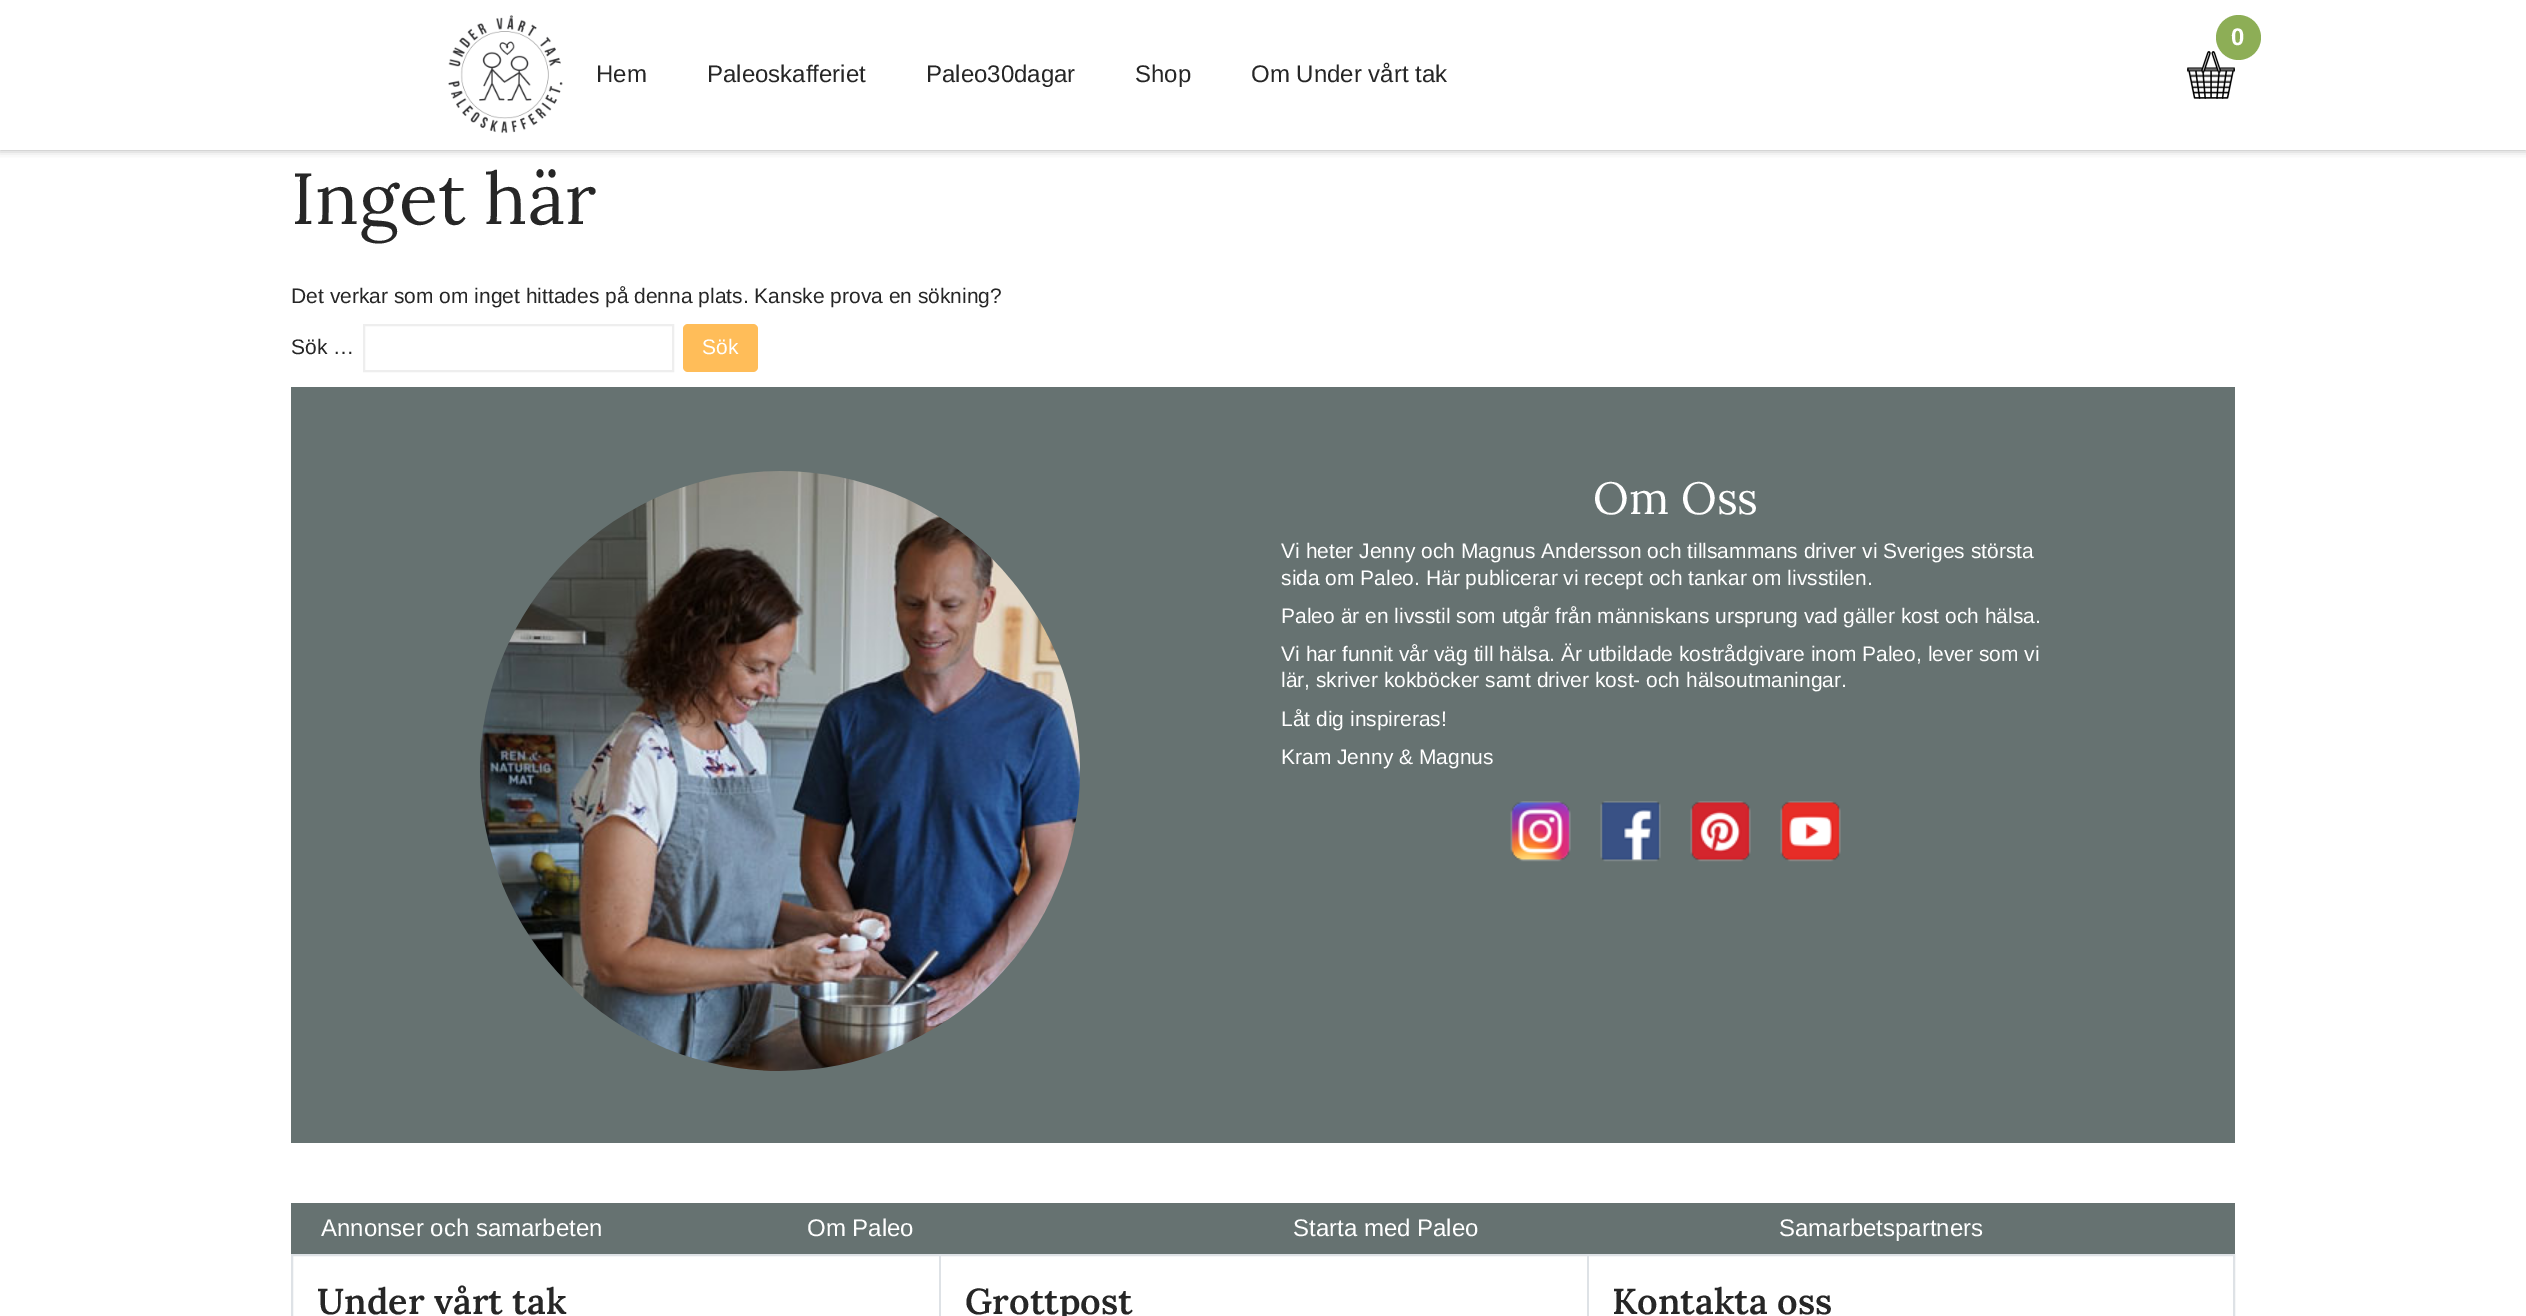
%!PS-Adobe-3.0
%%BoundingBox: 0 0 2526 1316
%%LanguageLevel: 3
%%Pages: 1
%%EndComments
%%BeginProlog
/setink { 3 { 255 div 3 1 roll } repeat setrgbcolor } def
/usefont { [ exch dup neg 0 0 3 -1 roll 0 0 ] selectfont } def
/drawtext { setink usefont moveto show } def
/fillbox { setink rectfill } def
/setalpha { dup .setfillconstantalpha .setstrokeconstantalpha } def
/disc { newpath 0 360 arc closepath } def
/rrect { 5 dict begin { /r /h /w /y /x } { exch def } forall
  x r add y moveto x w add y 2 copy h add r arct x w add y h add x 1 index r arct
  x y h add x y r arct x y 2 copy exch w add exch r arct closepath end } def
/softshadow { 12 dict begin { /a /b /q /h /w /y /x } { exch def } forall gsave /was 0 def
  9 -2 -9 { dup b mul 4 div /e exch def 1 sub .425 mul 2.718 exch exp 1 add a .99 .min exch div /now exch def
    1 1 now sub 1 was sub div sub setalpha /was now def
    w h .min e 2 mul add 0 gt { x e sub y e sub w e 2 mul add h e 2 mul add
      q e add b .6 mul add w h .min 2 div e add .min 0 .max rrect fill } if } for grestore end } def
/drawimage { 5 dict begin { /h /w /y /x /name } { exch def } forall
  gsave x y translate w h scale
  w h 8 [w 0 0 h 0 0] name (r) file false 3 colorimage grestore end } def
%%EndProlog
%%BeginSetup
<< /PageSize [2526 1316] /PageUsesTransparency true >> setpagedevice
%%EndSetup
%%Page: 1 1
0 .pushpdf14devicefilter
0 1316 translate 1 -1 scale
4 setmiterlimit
0 0 2526 1316 255 255 255 fillbox
gsave
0 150 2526 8 rectclip
170 170 170 setink
0 0 2526 150 0 4 1 softshadow
grestore
(assets/img1.rgb) 2187 51 48 48 drawimage
141 174 86 setink
2238.5 37.5 22.5 disc fill
(0) 2231 45 /LiberationSans-Bold 24 255 255 255 drawtext
(assets/img2.rgb) 448 15 115 118 drawimage
(Hem) 596 82 /LiberationSans-Regular 24 38 38 38 drawtext
(Paleoskafferiet) 707 82 /LiberationSans-Regular 24 38 38 38 drawtext
(Paleo30dagar) 926 82 /LiberationSans-Regular 24 38 38 38 drawtext
(Shop) 1135 82 /LiberationSans-Regular 24 38 38 38 drawtext
(Om Under vårt tak) 1251 82 /LiberationSans-Regular 24 38 38 38 drawtext
(Inget här) 291 224 /Lora-Regular 72 38 38 38 drawtext
(Det verkar som om inget hittades på denna plats. Kanske prova en sökning?) 291 303 /LiberationSans-Regular 21 38 38 38 drawtext
(Sök …) 291 354 /LiberationSans-Regular 21 38 38 38 drawtext
238 238 238 setink
2 setlinewidth
364 325 309 46 rectstroke
255 189 89 setink
683 324 75 48 5 rrect fill
(Sök) 702 354 /LiberationSans-Regular 21 255 255 255 drawtext
291 387 1944 756 102 114 113 fillbox
(assets/img3.rgb) 480 471 600 600 drawimage
(Om Oss) 1593 514 /Lora-Regular 45 255 255 255 drawtext
(Vi heter Jenny och Magnus Andersson och tillsammans driver vi Sveriges största) 1281 558 /LiberationSans-Regular 21 255 255 255 drawtext
(sida om Paleo. Här publicerar vi recept och tankar om livsstilen.) 1281 585 /LiberationSans-Regular 21 255 255 255 drawtext
(Paleo är en livsstil som utgår från människans ursprung vad gäller kost och hälsa.) 1281 623 /LiberationSans-Regular 21 255 255 255 drawtext
(Vi har funnit vår väg till hälsa. Är utbildade kostrådgivare inom Paleo, lever som vi) 1281 661 /LiberationSans-Regular 21 255 255 255 drawtext
(lär, skriver kokböcker samt driver kost- och hälsoutmaningar.) 1281 687 /LiberationSans-Regular 21 255 255 255 drawtext
(Låt dig inspireras!) 1281 726 /LiberationSans-Regular 21 255 255 255 drawtext
(Kram Jenny & Magnus) 1281 764 /LiberationSans-Regular 21 255 255 255 drawtext
(assets/img4.rgb) 1510 801 61 61 drawimage
(assets/img5.rgb) 1600 801 61 61 drawimage
(assets/img6.rgb) 1690 801 61 61 drawimage
(assets/img7.rgb) 1780 801 61 61 drawimage
291 1203 1944 51 102 114 113 fillbox
(Annonser och samarbeten) 321 1236 /LiberationSans-Regular 24 255 255 255 drawtext
(Om Paleo) 807 1236 /LiberationSans-Regular 24 255 255 255 drawtext
(Starta med Paleo) 1293 1236 /LiberationSans-Regular 24 255 255 255 drawtext
(Samarbetspartners) 1779 1236 /LiberationSans-Regular 24 255 255 255 drawtext
222 226 230 setink
292 1255 1942 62 rectstroke
(Under vårt tak) 317 1314 /Lora-SemiBold 36 38 38 38 drawtext
939 1256 2 60 222 226 230 fillbox
(Grottpost) 965 1314 /Lora-SemiBold 36 38 38 38 drawtext
1587 1256 2 60 222 226 230 fillbox
(Kontakta oss) 1612 1314 /Lora-SemiBold 36 38 38 38 drawtext
.poppdf14devicefilter showpage
%%EOF
